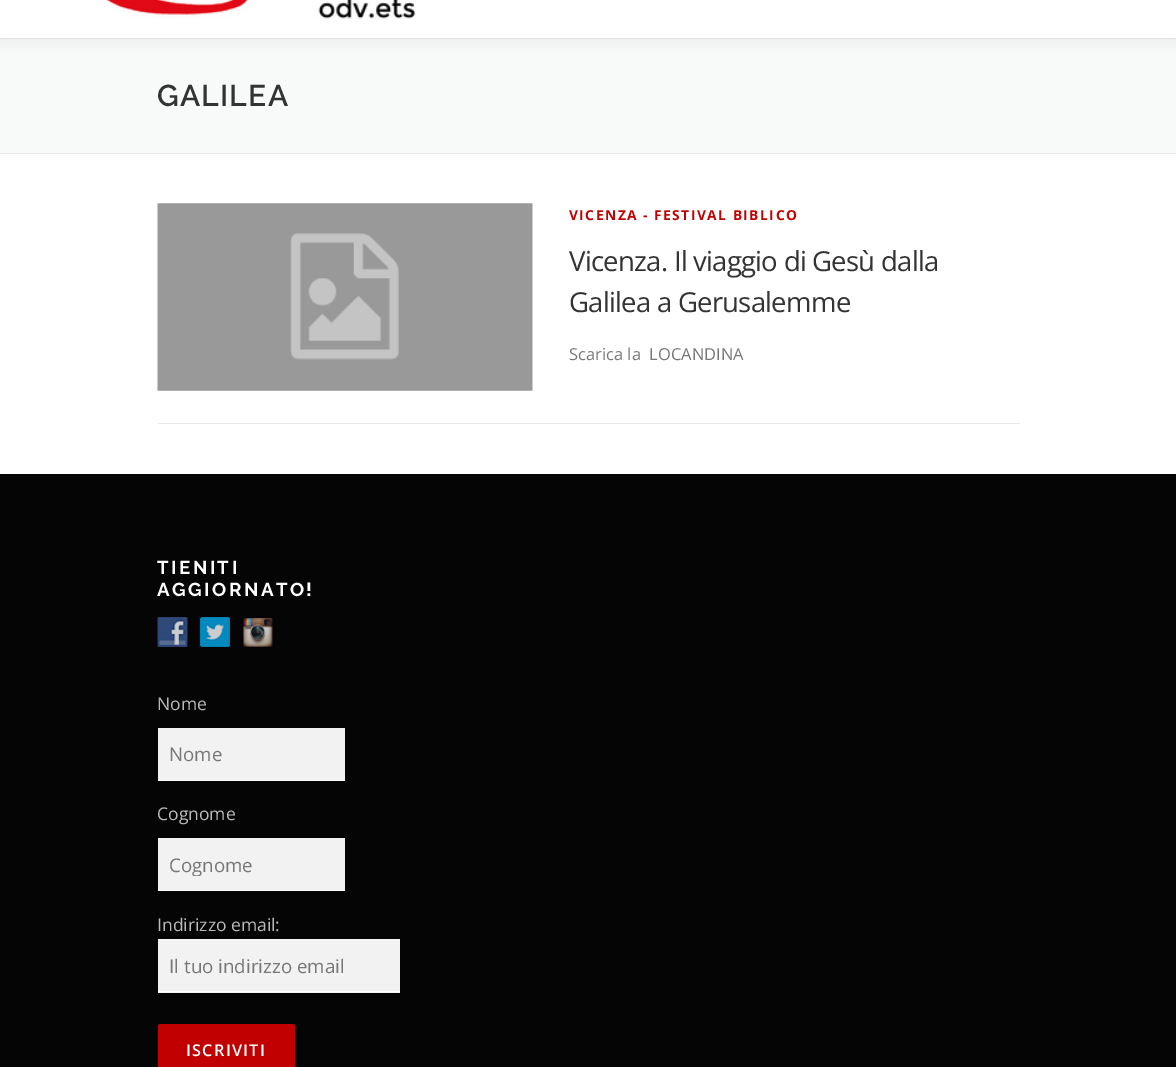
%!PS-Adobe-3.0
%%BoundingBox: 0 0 1176 1067
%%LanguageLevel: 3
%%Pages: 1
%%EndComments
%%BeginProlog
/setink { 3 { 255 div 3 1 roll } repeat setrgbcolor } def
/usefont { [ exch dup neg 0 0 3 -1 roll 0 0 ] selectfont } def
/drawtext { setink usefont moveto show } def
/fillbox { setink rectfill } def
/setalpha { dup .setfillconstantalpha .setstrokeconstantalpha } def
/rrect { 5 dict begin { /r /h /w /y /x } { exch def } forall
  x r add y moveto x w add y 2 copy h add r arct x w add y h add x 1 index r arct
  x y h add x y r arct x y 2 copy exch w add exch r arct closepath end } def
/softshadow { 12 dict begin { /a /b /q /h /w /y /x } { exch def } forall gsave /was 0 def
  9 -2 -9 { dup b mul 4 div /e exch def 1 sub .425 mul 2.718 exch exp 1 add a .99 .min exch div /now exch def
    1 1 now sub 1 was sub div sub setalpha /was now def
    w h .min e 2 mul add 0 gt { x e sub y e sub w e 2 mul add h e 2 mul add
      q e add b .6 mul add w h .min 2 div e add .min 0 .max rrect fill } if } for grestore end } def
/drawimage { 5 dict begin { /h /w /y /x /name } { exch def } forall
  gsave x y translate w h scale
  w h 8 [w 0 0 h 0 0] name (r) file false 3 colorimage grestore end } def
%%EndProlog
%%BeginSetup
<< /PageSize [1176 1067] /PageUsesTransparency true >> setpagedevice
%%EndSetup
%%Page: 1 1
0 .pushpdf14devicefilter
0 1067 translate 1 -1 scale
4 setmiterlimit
0 0 1176 1067 255 255 255 fillbox
0 39 1176 114 248 249 249 fillbox
0 38 1176 1 233 233 233 fillbox
50 50 50 setink
0 -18 1176 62 0 6 0.06 softshadow
0 0 1176 38 255 255 255 fillbox
(assets/img1.rgb) 106 0 310 19 drawimage
0 153 1176 1 233 233 233 fillbox
/Raleway-SemiBold 30 usefont
51 51 51 setink
157 106 moveto 1.25 0 (GALILEA) ashow
158 423 862 1 233 233 233 fillbox
(assets/img2.rgb) 157 203 376 188 drawimage
/OpenSans-Bold 13.75 usefont
193 1 1 setink
569 220 moveto 1.5 0 (VICENZA - FESTIVAL BIBLICO) ashow
/OpenSans-Regular 27.5 usefont
51 51 51 setink
569 271 moveto -0.75 0 (Vicenza. Il viaggio di Gesù dalla) ashow
569 312 moveto -0.75 0 (Galilea a Gerusalemme) ashow
(Scarica la  LOCANDINA) 569 360 /OpenSans-Regular 16.5 119 119 119 drawtext
0 474 1176 593 5 5 5 fillbox
/Raleway-Bold 18.75 usefont
255 255 255 setink
157 574 moveto 2.5 0 (TIENITI) ashow
157 596 moveto 2.5 0 (AGGIORNATO!) ashow
(assets/img3.rgb) 157 617 31 30 drawimage
(assets/img4.rgb) 200 617 30 30 drawimage
(assets/img5.rgb) 243 618 30 29 drawimage
(Nome) 157 710 /OpenSans-Regular 17.5 187 187 187 drawtext
158 728 187 52 242 242 242 fillbox
158 780 187 1 255 255 255 fillbox
(Nome) 169 761 /OpenSans-Regular 18.75 119 119 119 drawtext
(Cognome) 157 820 /OpenSans-Regular 17.5 187 187 187 drawtext
158 838 187 52 242 242 242 fillbox
158 890 187 1 255 255 255 fillbox
gsave
170 851 163 25 rectclip
(Cognome) 169 872 /OpenSans-Regular 18.75 119 119 119 drawtext
grestore
(Indirizzo email:) 157 931 /OpenSans-Regular 17.5 187 187 187 drawtext
158 939 242 54 242 242 242 fillbox
158 991 242 1 255 255 255 fillbox
(Il tuo indirizzo email) 169 973 /OpenSans-Regular 18.75 119 119 119 drawtext
193 1 1 setink
158 1024 137 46 2.5 rrect fill
/OpenSans-SemiBold 16.25 usefont
255 255 255 setink
186 1056 moveto 1.25 0 (ISCRIVITI) ashow
.poppdf14devicefilter showpage
%%EOF
